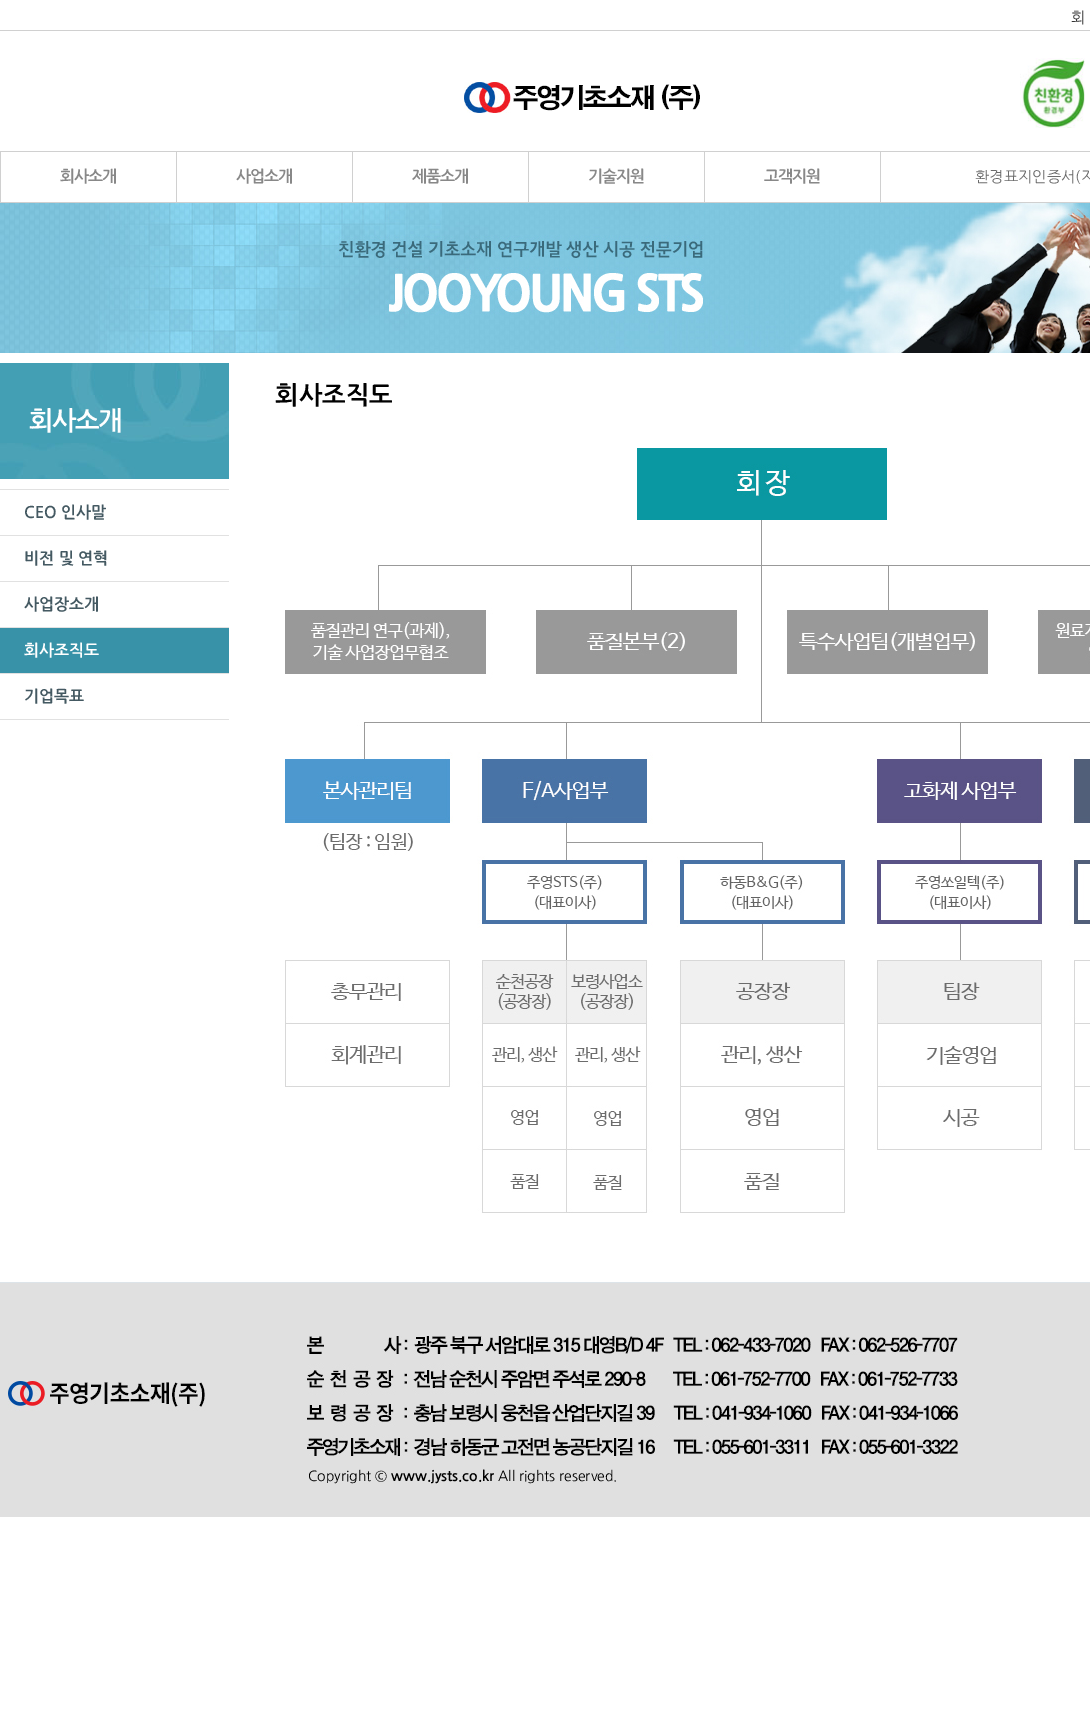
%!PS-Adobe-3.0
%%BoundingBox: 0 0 1090 1718
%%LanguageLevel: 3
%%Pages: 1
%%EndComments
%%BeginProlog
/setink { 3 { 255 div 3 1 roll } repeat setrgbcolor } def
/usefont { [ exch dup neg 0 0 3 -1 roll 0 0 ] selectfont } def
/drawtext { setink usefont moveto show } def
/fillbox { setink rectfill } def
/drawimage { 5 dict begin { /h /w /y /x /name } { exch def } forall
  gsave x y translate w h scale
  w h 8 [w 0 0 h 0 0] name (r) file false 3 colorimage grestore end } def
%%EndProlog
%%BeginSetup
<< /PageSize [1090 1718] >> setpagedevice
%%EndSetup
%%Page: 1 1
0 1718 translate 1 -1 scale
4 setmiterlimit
0 0 1090 1718 255 255 255 fillbox
0 30 1090 1 208 208 208 fillbox
/NanumGothic-Regular 15.25 usefont
51 51 51 setink
1071 23 moveto -2 0 (회) ashow
(assets/img1.rgb) 464 82 236 31 drawimage
(assets/img2.rgb) 1020 58 65 70 drawimage
0 151 1090 1 208 208 208 fillbox
0 202 1090 1 208 208 208 fillbox
0 152 1 50 208 208 208 fillbox
/NanumGothic-Bold 16 usefont
136 136 136 setink
60 182 moveto -1 0 (회사소개) ashow
176 152 1 50 208 208 208 fillbox
136 136 136 setink
236 182 moveto -1 0 (사업소개) ashow
352 152 1 50 208 208 208 fillbox
136 136 136 setink
412 182 moveto -1 0 (제품소개) ashow
528 152 1 50 208 208 208 fillbox
136 136 136 setink
588 182 moveto -1 0 (기술지원) ashow
704 152 1 50 208 208 208 fillbox
136 136 136 setink
764 182 moveto -1 0 (고객지원) ashow
880 152 1 50 208 208 208 fillbox
gsave
975 170 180 14 rectclip
(환경표지인증서\(지) 975 182 /NanumGothic-Regular 15.25 107 107 107 drawtext
grestore
(assets/img3.rgb) 0 203 1090 150 drawimage
(회사조직도) 275 404 /NanumGothic-Bold 25 0 0 0 drawtext
(assets/img4.rgb) 285 448 805 765 drawimage
(assets/img5.rgb) 0 363 229 116 drawimage
/NanumGothic-Bold 26 usefont
255 255 255 setink
29 430 moveto -1.5 0 (회사소개) ashow
0 719 229 1 225 225 225 fillbox
0 489 229 1 225 225 225 fillbox
(CEO 인사말) 24 518 /NanumGothic-Bold 16 68 89 98 drawtext
0 535 229 1 225 225 225 fillbox
(비전 및 연혁) 24 564 /NanumGothic-Bold 16 68 89 98 drawtext
0 581 229 1 225 225 225 fillbox
(사업장소개) 24 610 /NanumGothic-Bold 16 68 89 98 drawtext
0 628 229 45 56 146 168 fillbox
0 627 229 1 225 225 225 fillbox
(회사조직도) 24 656 /NanumGothic-Bold 16 255 255 255 drawtext
0 673 229 1 225 225 225 fillbox
(기업목표) 24 702 /NanumGothic-Bold 16 68 89 98 drawtext
0 1282 1090 1 221 228 233 fillbox
0 1283 1090 234 224 224 224 fillbox
(assets/img6.rgb) 8 1381 197 30 drawimage
(assets/img7.rgb) 307 1336 651 120 drawimage
(Copyright ©) 308 1481 /NanumGothic-Regular 14 0 0 0 drawtext
(www.jysts.co.kr) 391 1481 /NanumGothic-Bold 14 0 0 0 drawtext
(All rights reserved.) 498 1481 /NanumGothic-Regular 14 0 0 0 drawtext
showpage
%%EOF
